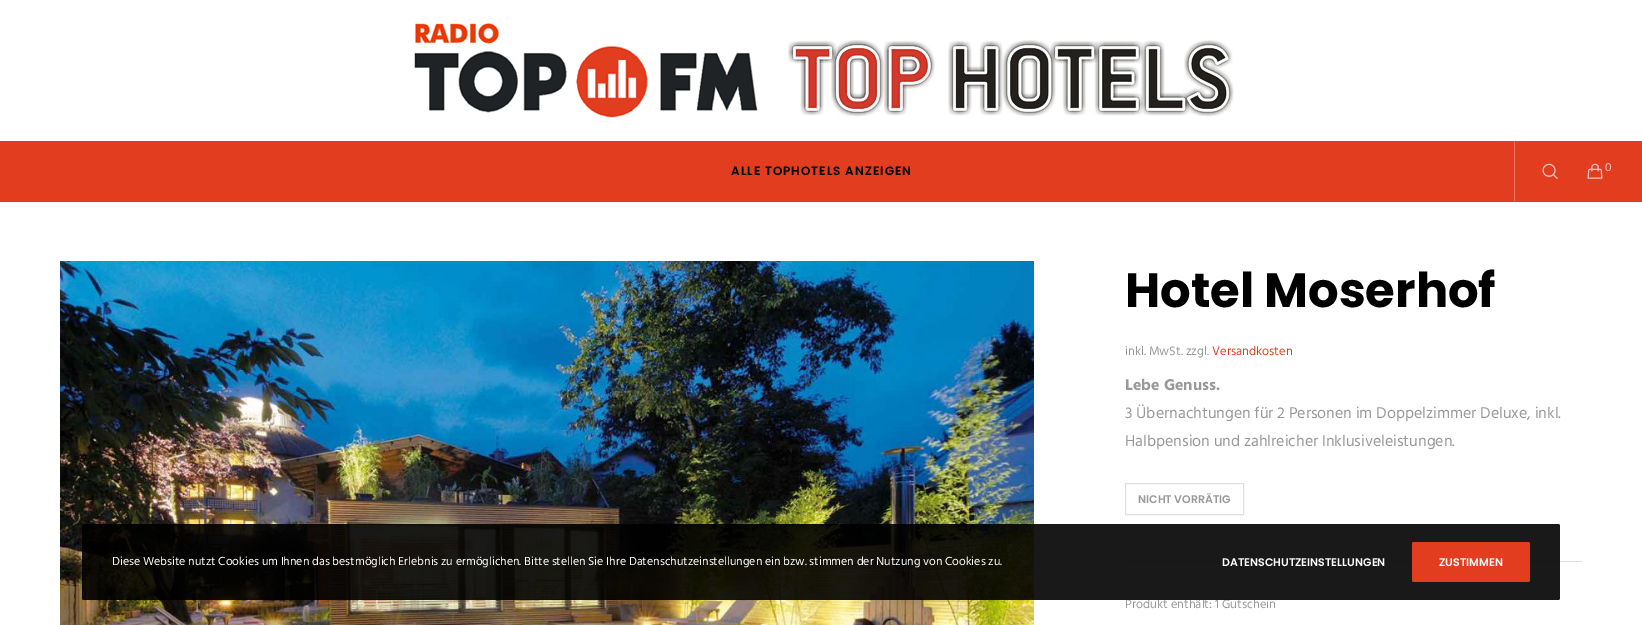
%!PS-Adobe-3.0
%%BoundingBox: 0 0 1642 625
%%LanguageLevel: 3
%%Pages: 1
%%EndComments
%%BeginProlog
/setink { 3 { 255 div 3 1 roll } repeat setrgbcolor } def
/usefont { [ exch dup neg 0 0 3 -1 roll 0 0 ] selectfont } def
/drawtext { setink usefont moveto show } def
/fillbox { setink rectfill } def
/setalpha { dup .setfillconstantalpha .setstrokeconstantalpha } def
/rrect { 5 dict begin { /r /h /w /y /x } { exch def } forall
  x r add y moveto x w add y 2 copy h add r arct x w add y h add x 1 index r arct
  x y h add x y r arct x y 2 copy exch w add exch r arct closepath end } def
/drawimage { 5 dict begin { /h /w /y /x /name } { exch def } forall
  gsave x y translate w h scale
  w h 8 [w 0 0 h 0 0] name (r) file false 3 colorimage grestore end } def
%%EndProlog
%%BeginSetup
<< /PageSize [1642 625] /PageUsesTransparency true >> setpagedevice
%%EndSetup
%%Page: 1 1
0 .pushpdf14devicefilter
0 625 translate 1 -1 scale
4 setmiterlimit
0 0 1642 625 255 255 255 fillbox
(assets/img1.rgb) 414 23 820 99 drawimage
0 141 1642 61 227 61 32 fillbox
/Poppins-SemiBold 12 usefont
0 0 0 setink
731 175 moveto 1 0 (ALLE TOPHOTELS ANZEIGEN) ashow
1514 141 1 60 235 119 99 fillbox
(assets/img2.rgb) 1542 163 16 16 drawimage
(assets/img3.rgb) 1587 163 16 16 drawimage
(0) 1605 171 /HindSiliguri-Regular 12 247 197 188 drawtext
(assets/img4.rgb) 60 261 974 364 drawimage
(Hotel Moserhof) 1125 307 /Poppins-Bold 48 0 0 0 drawtext
(inkl. MwSt. zzgl.) 1125 355 /HindSiliguri-Regular 12.6 153 153 153 drawtext
(Versandkosten) 1212 355 /HindSiliguri-Regular 12.6 227 61 32 drawtext
(Lebe Genuss.) 1125 390 /HindSiliguri-Bold 16 153 153 153 drawtext
(3 Übernachtungen für 2 Personen im Doppelzimmer Deluxe, inkl.) 1125 418 /HindSiliguri-Regular 16 153 153 153 drawtext
(Halbpension und zahlreicher Inklusiveleistungen.) 1125 446 /HindSiliguri-Regular 16 153 153 153 drawtext
224 224 224 setink
1125.5 483.5 118 31 rectstroke
(NICHT VORRÄTIG) 1138 503 /Poppins-SemiBold 11 153 153 153 drawtext
1125 561 457 1 224 224 224 fillbox
(Produkt enthält: 1 Gutschein) 1125 608 /HindSiliguri-Regular 12.6 153 153 153 drawtext
0.9 setalpha
0 0 0 setink
82 524 1478 76 2 rrect fill
1 setalpha
(Diese Website nutzt Cookies um Ihnen das bestmöglich Erlebnis zu ermöglichen. Bitte stellen Sie Ihre Datenschutzeinstellungen ein bzw. stimmen der Nutzung von Cookies zu.) 112 565 /HindSiliguri-Regular 12 255 255 255 drawtext
(DATENSCHUTZEINSTELLUNGEN) 1222 566 /Poppins-SemiBold 11 255 255 255 drawtext
227 61 32 setink
1412 542 118 40 2 rrect fill
(ZUSTIMMEN) 1439 566 /Poppins-SemiBold 11 255 255 255 drawtext
.poppdf14devicefilter showpage
%%EOF
